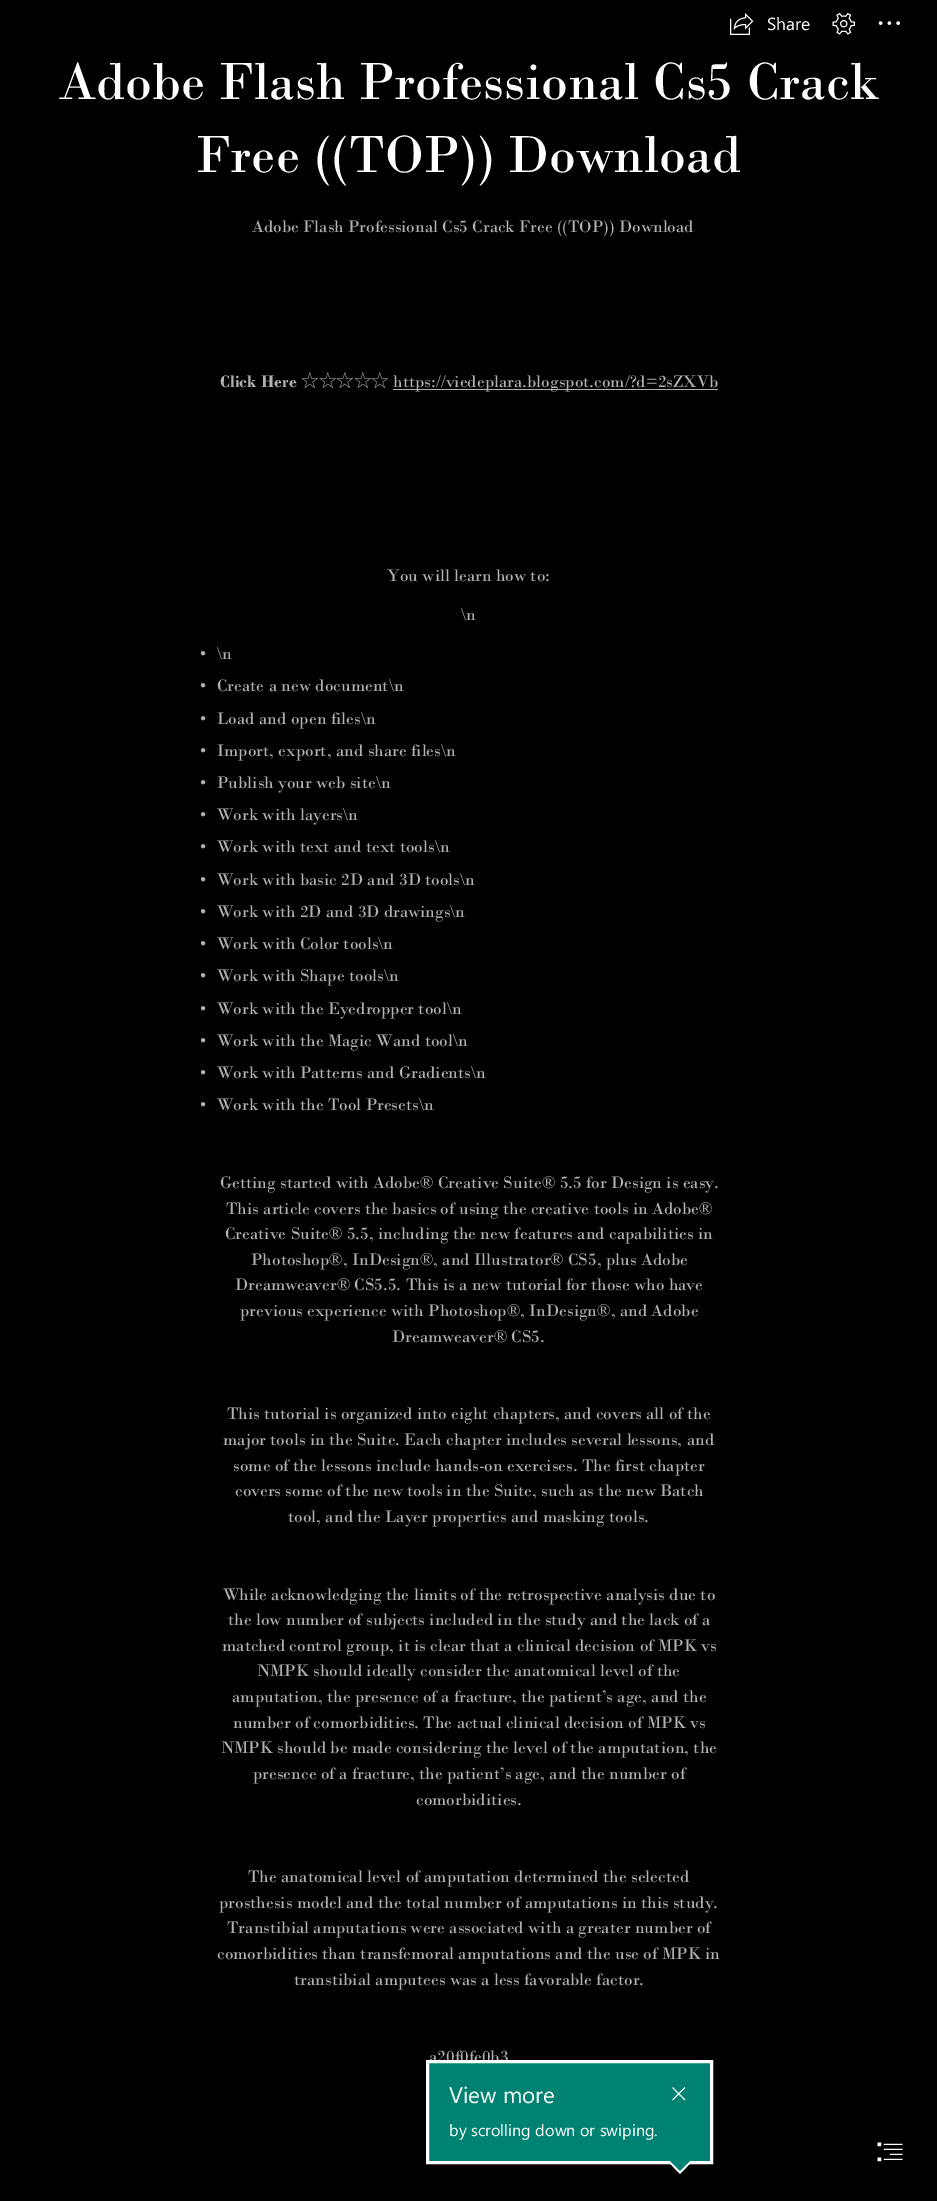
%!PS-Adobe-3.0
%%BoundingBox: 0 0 937 2201
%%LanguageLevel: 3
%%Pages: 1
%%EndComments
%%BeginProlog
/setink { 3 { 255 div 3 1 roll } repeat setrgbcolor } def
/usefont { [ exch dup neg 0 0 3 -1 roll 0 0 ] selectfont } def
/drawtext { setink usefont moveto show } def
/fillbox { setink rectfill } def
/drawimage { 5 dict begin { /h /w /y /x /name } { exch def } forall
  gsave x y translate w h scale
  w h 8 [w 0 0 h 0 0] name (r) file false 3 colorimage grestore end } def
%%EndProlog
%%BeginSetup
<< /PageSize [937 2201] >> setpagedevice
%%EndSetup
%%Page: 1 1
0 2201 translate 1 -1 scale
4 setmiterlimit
0 0 937 2201 0 0 0 fillbox
(assets/img1.rgb) 730 13 24 22 drawimage
(Share) 767 30 /SegoeUI-Regular 17.5 255 255 255 drawtext
(assets/img2.rgb) 832 12 23 23 drawimage
(assets/img3.rgb) 878 21 22 4 drawimage
(Adobe Flash Professional Cs5 Crack) 59 99 /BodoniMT-Regular 54.9 255 255 255 drawtext
(Free \(\(TOP\)\) Download) 196 172 /BodoniMT-Regular 54.9 255 255 255 drawtext
(Adobe Flash Professional Cs5 Crack Free \(\(TOP\)\) Download) 252 232 /BodoniMT-Regular 17.6 178 178 178 drawtext
(Click Here) 220 387 /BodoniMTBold-Bold 17.6 178 178 178 drawtext
(☆☆☆☆☆) 301 387 /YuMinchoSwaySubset-Regular 17.6 178 178 178 drawtext
393 389 325 1 178 178 178 fillbox
(https://viedeplara.blogspot.com/?d=2sZXVb) 393 387 /BodoniMT-Regular 17.6 178 178 178 drawtext
(You will learn how to:) 387 581 /BodoniMT-Regular 17.6 178 178 178 drawtext
(\\n) 461 620 /BodoniMT-Regular 17.6 178 178 178 drawtext
(•) 200 659 /BodoniMT-Regular 17.6 178 178 178 drawtext
(\\n) 217 659 /BodoniMT-Regular 17.6 178 178 178 drawtext
(•) 200 691 /BodoniMT-Regular 17.6 178 178 178 drawtext
(Create a new document\\n) 217 691 /BodoniMT-Regular 17.6 178 178 178 drawtext
(•) 200 724 /BodoniMT-Regular 17.6 178 178 178 drawtext
(Load and open files\\n) 217 724 /BodoniMT-Regular 17.6 178 178 178 drawtext
(•) 200 756 /BodoniMT-Regular 17.6 178 178 178 drawtext
(Import, export, and share files\\n) 217 756 /BodoniMT-Regular 17.6 178 178 178 drawtext
(•) 200 788 /BodoniMT-Regular 17.6 178 178 178 drawtext
(Publish your web site\\n) 217 788 /BodoniMT-Regular 17.6 178 178 178 drawtext
(•) 200 820 /BodoniMT-Regular 17.6 178 178 178 drawtext
(Work with layers\\n) 217 820 /BodoniMT-Regular 17.6 178 178 178 drawtext
(•) 200 852 /BodoniMT-Regular 17.6 178 178 178 drawtext
(Work with text and text tools\\n) 217 852 /BodoniMT-Regular 17.6 178 178 178 drawtext
(•) 200 885 /BodoniMT-Regular 17.6 178 178 178 drawtext
(Work with basic 2D and 3D tools\\n) 217 885 /BodoniMT-Regular 17.6 178 178 178 drawtext
(•) 200 917 /BodoniMT-Regular 17.6 178 178 178 drawtext
(Work with 2D and 3D drawings\\n) 217 917 /BodoniMT-Regular 17.6 178 178 178 drawtext
(•) 200 949 /BodoniMT-Regular 17.6 178 178 178 drawtext
(Work with Color tools\\n) 217 949 /BodoniMT-Regular 17.6 178 178 178 drawtext
(•) 200 981 /BodoniMT-Regular 17.6 178 178 178 drawtext
(Work with Shape tools\\n) 217 981 /BodoniMT-Regular 17.6 178 178 178 drawtext
(•) 200 1014 /BodoniMT-Regular 17.6 178 178 178 drawtext
(Work with the Eyedropper tool\\n) 217 1014 /BodoniMT-Regular 17.6 178 178 178 drawtext
(•) 200 1046 /BodoniMT-Regular 17.6 178 178 178 drawtext
(Work with the Magic Wand tool\\n) 217 1046 /BodoniMT-Regular 17.6 178 178 178 drawtext
(•) 200 1078 /BodoniMT-Regular 17.6 178 178 178 drawtext
(Work with Patterns and Gradients\\n) 217 1078 /BodoniMT-Regular 17.6 178 178 178 drawtext
(•) 200 1110 /BodoniMT-Regular 17.6 178 178 178 drawtext
(Work with the Tool Presets\\n) 217 1110 /BodoniMT-Regular 17.6 178 178 178 drawtext
(Getting started with Adobe® Creative Suite® 5.5 for Design is easy.) 220 1188 /BodoniMT-Regular 17.6 178 178 178 drawtext
(This article covers the basics of using the creative tools in Adobe®) 226 1214 /BodoniMT-Regular 17.6 178 178 178 drawtext
(Creative Suite® 5.5, including the new features and capabilities in) 225 1239 /BodoniMT-Regular 17.6 178 178 178 drawtext
(Photoshop®, InDesign®, and Illustrator® CS5, plus Adobe) 251 1265 /BodoniMT-Regular 17.6 178 178 178 drawtext
(Dreamweaver® CS5.5. This is a new tutorial for those who have) 235 1290 /BodoniMT-Regular 17.6 178 178 178 drawtext
(previous experience with Photoshop®, InDesign®, and Adobe) 240 1316 /BodoniMT-Regular 17.6 178 178 178 drawtext
(Dreamweaver® CS5.) 392 1342 /BodoniMT-Regular 17.6 178 178 178 drawtext
(This tutorial is organized into eight chapters, and covers all of the) 227 1419 /BodoniMT-Regular 17.6 178 178 178 drawtext
(major tools in the Suite. Each chapter includes several lessons, and) 223 1445 /BodoniMT-Regular 17.6 178 178 178 drawtext
(some of the lessons include hands-on exercises. The first chapter) 233 1471 /BodoniMT-Regular 17.6 178 178 178 drawtext
(covers some of the new tools in the Suite, such as the new Batch) 235 1496 /BodoniMT-Regular 17.6 178 178 178 drawtext
(tool, and the Layer properties and masking tools.) 288 1522 /BodoniMT-Regular 17.6 178 178 178 drawtext
(While acknowledging the limits of the retrospective analysis due to) 223 1600 /BodoniMT-Regular 17.6 178 178 178 drawtext
(the low number of subjects included in the study and the lack of a) 228 1625 /BodoniMT-Regular 17.6 178 178 178 drawtext
(matched control group, it is clear that a clinical decision of MPK vs) 222 1651 /BodoniMT-Regular 17.6 178 178 178 drawtext
(NMPK should ideally consider the anatomical level of the) 257 1676 /BodoniMT-Regular 17.6 178 178 178 drawtext
(amputation, the presence of a fracture, the patient’s age, and the) 232 1702 /BodoniMT-Regular 17.6 178 178 178 drawtext
(number of comorbidities. The actual clinical decision of MPK vs) 233 1728 /BodoniMT-Regular 17.6 178 178 178 drawtext
(NMPK should be made considering the level of the amputation, the) 221 1753 /BodoniMT-Regular 17.6 178 178 178 drawtext
(presence of a fracture, the patient’s age, and the number of) 253 1779 /BodoniMT-Regular 17.6 178 178 178 drawtext
(comorbidities.) 416 1805 /BodoniMT-Regular 17.6 178 178 178 drawtext
(The anatomical level of amputation determined the selected) 248 1882 /BodoniMT-Regular 17.6 178 178 178 drawtext
(prosthesis model and the total number of amputations in this study.) 219 1908 /BodoniMT-Regular 17.6 178 178 178 drawtext
(Transtibial amputations were associated with a greater number of) 227 1933 /BodoniMT-Regular 17.6 178 178 178 drawtext
(comorbidities than transfemoral amputations and the use of MPK in) 217 1959 /BodoniMT-Regular 17.6 178 178 178 drawtext
(transtibial amputees was a less favorable factor.) 294 1985 /BodoniMT-Regular 17.6 178 178 178 drawtext
(a20f0fe0b3) 429 2062 /BodoniMT-Regular 17.6 178 178 178 drawtext
0 130 114 setink
427.5 2061.5 moveto 711.5 2061.5 lineto 711.5 2162.5 lineto 427.5 2162.5 lineto closepath gsave fill grestore
255 255 255 setink
3 setlinewidth
stroke
(View more) 449 2103 /SegoeUI-Regular 22.5 255 255 255 drawtext
(by scrolling down or swiping.) 449 2136 /SegoeUI-Regular 16.25 255 255 255 drawtext
(assets/img4.rgb) 672 2087 14 14 drawimage
667.5 2161 moveto 692.5 2161 lineto 680 2174 lineto closepath fill
0 130 114 setink
670 2161 moveto 690 2161 lineto 680 2171 lineto closepath fill
(assets/img5.rgb) 877 2142 26 20 drawimage
showpage
%%EOF
